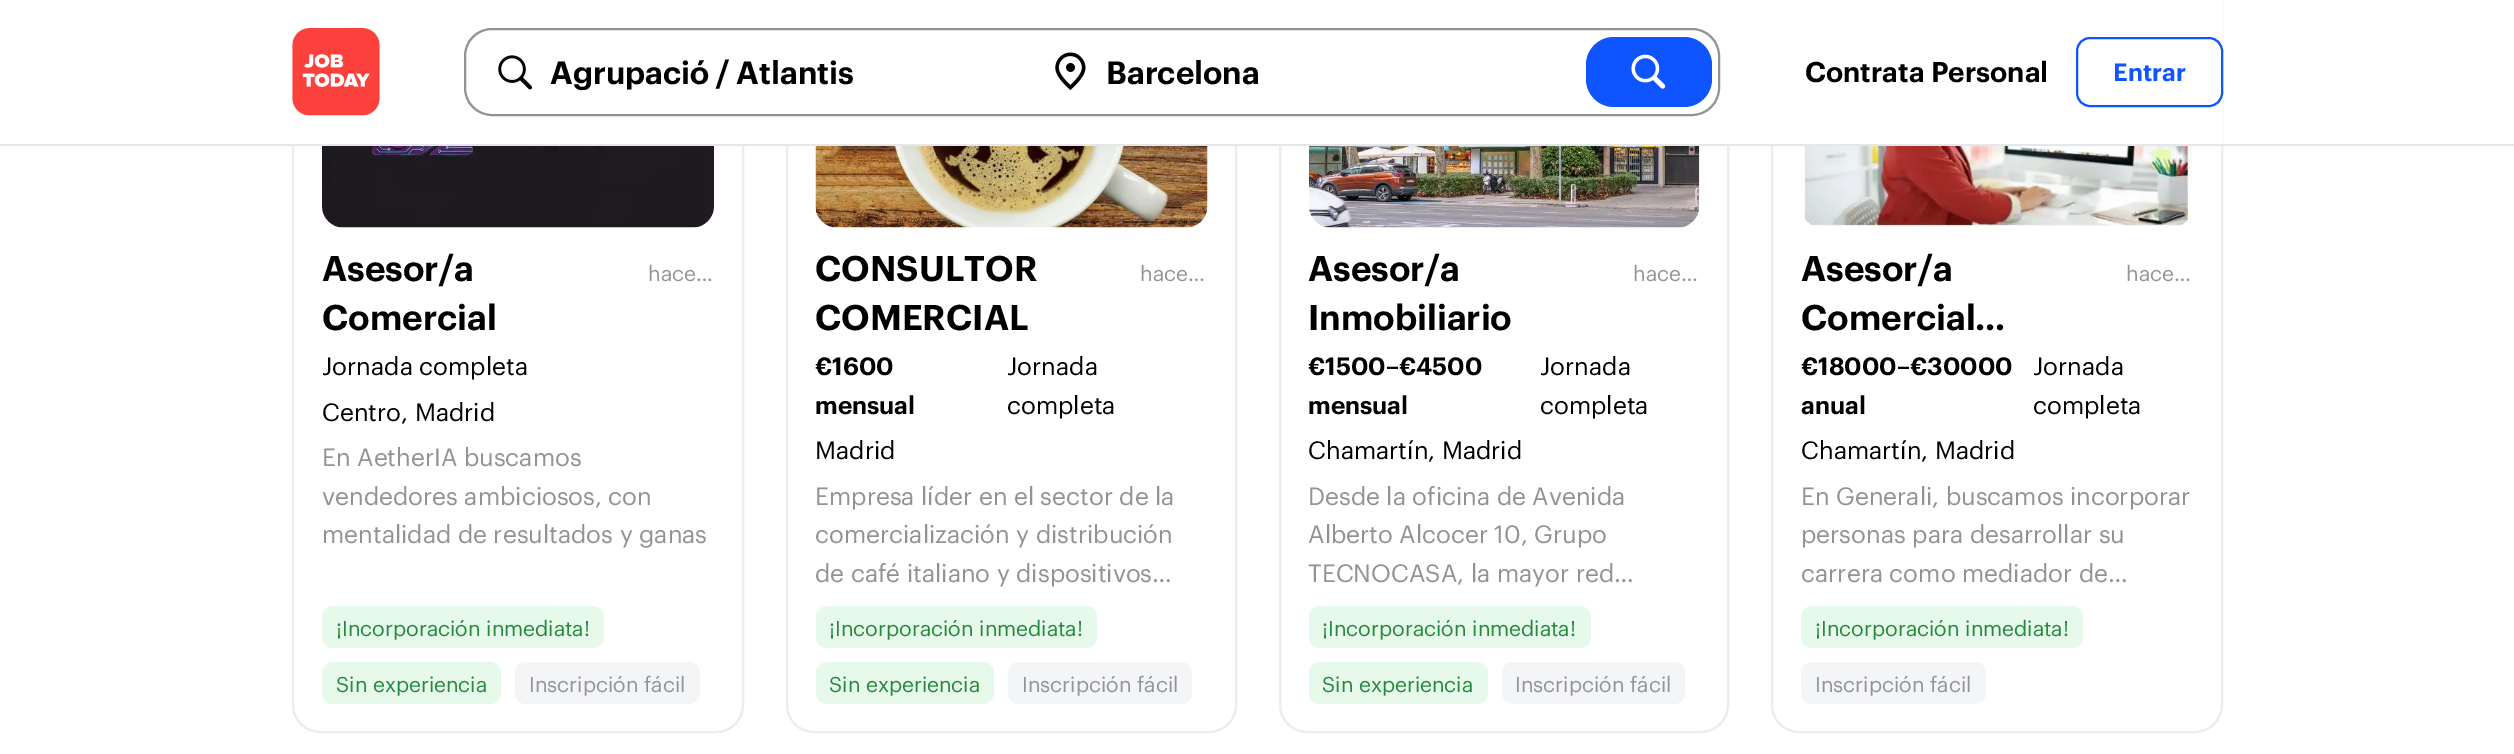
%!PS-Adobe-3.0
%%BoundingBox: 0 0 2514 754
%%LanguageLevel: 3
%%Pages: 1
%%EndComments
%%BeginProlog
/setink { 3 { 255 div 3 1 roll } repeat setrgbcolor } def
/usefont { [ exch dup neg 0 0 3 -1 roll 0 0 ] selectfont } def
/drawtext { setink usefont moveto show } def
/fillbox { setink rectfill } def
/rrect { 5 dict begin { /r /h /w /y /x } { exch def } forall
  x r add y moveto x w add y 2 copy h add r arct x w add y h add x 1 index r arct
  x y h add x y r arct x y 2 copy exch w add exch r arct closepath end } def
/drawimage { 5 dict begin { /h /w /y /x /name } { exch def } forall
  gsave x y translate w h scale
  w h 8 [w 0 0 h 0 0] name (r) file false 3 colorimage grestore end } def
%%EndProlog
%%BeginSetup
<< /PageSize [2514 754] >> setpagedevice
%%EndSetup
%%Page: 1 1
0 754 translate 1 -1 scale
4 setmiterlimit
0 0 2514 754 255 255 255 fillbox
236 236 236 setink
2 setlinewidth
293 -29 450 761 27 rrect stroke
787 -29 449 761 27 rrect stroke
1280 -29 448 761 27 rrect stroke
1772 -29 450 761 27 rrect stroke
292 0 1931 144 255 255 255 fillbox
0 144 2514 2 229 231 235 fillbox
(assets/img1.rgb) 292 28 88 88 drawimage
146 146 146 setink
465 29 1254 86 27 rrect stroke
(assets/img2.rgb) 498 55 34 35 drawimage
(Agrupació / Atlantis) 550 84 /Graphik-SemiBold 31.5 0 0 0 drawtext
(assets/img3.rgb) 1055 52 31 38 drawimage
(Barcelona) 1106 84 /Graphik-SemiBold 31.5 0 0 0 drawtext
14 84 255 setink
1586 37 126 70 28 rrect fill
(assets/img4.rgb) 1631 54 35 35 drawimage
(Contrata Personal) 1805 82 /Graphik-SemiBold 28 0 0 0 drawtext
14 84 255 setink
2077 38 145 68 13 rrect stroke
(Entrar) 2113 81 /Graphik-SemiBold 24.5 14 84 255 drawtext
(assets/img5.rgb) 322 146 392 82 drawimage
(Asesor/a) 322 281 /Graphik-SemiBold 35 0 0 0 drawtext
(Comercial) 322 330 /Graphik-SemiBold 35 0 0 0 drawtext
(hace…) 648 281 /Graphik-Regular 21 147 147 154 drawtext
(Jornada completa) 322 375 /Graphik-Regular 24.5 0 0 0 drawtext
(Centro, Madrid) 322 421 /Graphik-Regular 24.5 0 0 0 drawtext
(En AetherIA buscamos) 322 466 /Graphik-Regular 24.5 146 146 146 drawtext
(vendedores ambiciosos, con) 322 505 /Graphik-Regular 24.5 146 146 146 drawtext
(mentalidad de resultados y ganas) 322 543 /Graphik-Regular 24.5 146 146 146 drawtext
231 249 235 setink
322 606 282 42 11 rrect fill
(¡Incorporación inmediata!) 336 636 /Graphik-Regular 21 36 137 61 drawtext
231 249 235 setink
322 662 179 42 11 rrect fill
(Sin experiencia) 336 692 /Graphik-Regular 21 36 137 61 drawtext
244 245 246 setink
515 662 185 42 11 rrect fill
(Inscripción fácil) 529 692 /Graphik-Regular 21 147 147 154 drawtext
(assets/img6.rgb) 815 146 393 82 drawimage
(CONSULTOR) 815 281 /Graphik-SemiBold 35 0 0 0 drawtext
(COMERCIAL) 815 330 /Graphik-SemiBold 35 0 0 0 drawtext
(hace…) 1140 281 /Graphik-Regular 21 147 147 154 drawtext
(€1600) 815 375 /Graphik-SemiBold 24.5 0 0 0 drawtext
(mensual) 815 414 /Graphik-SemiBold 24.5 0 0 0 drawtext
(Jornada) 1007 375 /Graphik-Regular 24.5 0 0 0 drawtext
(completa) 1007 414 /Graphik-Regular 24.5 0 0 0 drawtext
(Madrid) 815 459 /Graphik-Regular 24.5 0 0 0 drawtext
(Empresa líder en el sector de la) 815 505 /Graphik-Regular 24.5 146 146 146 drawtext
(comercialización y distribución) 815 543 /Graphik-Regular 24.5 146 146 146 drawtext
(de café italiano y dispositivos…) 815 582 /Graphik-Regular 24.5 146 146 146 drawtext
231 249 235 setink
816 606 281 42 11 rrect fill
(¡Incorporación inmediata!) 829 636 /Graphik-Regular 21 36 137 61 drawtext
231 249 235 setink
816 662 178 42 11 rrect fill
(Sin experiencia) 829 692 /Graphik-Regular 21 36 137 61 drawtext
244 245 246 setink
1008 662 184 42 11 rrect fill
(Inscripción fácil) 1022 692 /Graphik-Regular 21 147 147 154 drawtext
(assets/img7.rgb) 1309 146 391 82 drawimage
(Asesor/a) 1308 281 /Graphik-SemiBold 35 0 0 0 drawtext
(Inmobiliario) 1308 330 /Graphik-SemiBold 35 0 0 0 drawtext
(hace…) 1633 281 /Graphik-Regular 21 147 147 154 drawtext
(€1500–€4500) 1308 375 /Graphik-SemiBold 24.5 0 0 0 drawtext
(mensual) 1308 414 /Graphik-SemiBold 24.5 0 0 0 drawtext
(Jornada) 1540 375 /Graphik-Regular 24.5 0 0 0 drawtext
(completa) 1540 414 /Graphik-Regular 24.5 0 0 0 drawtext
(Chamartín, Madrid) 1308 459 /Graphik-Regular 24.5 0 0 0 drawtext
(Desde la oficina de Avenida) 1308 505 /Graphik-Regular 24.5 146 146 146 drawtext
(Alberto Alcocer 10, Grupo) 1308 543 /Graphik-Regular 24.5 146 146 146 drawtext
(TECNOCASA, la mayor red…) 1308 582 /Graphik-Regular 24.5 146 146 146 drawtext
231 249 235 setink
1309 606 282 42 11 rrect fill
(¡Incorporación inmediata!) 1322 636 /Graphik-Regular 21 36 137 61 drawtext
231 249 235 setink
1309 662 179 42 11 rrect fill
(Sin experiencia) 1322 692 /Graphik-Regular 21 36 137 61 drawtext
244 245 246 setink
1502 662 183 42 11 rrect fill
(Inscripción fácil) 1515 692 /Graphik-Regular 21 147 147 154 drawtext
(assets/img8.rgb) 1801 146 392 81 drawimage
(Asesor/a) 1801 281 /Graphik-SemiBold 35 0 0 0 drawtext
(Comercial…) 1801 330 /Graphik-SemiBold 35 0 0 0 drawtext
(hace…) 2126 281 /Graphik-Regular 21 147 147 154 drawtext
(€18000–€30000) 1801 375 /Graphik-SemiBold 24.5 0 0 0 drawtext
(anual) 1801 414 /Graphik-SemiBold 24.5 0 0 0 drawtext
(Jornada) 2033 375 /Graphik-Regular 24.5 0 0 0 drawtext
(completa) 2033 414 /Graphik-Regular 24.5 0 0 0 drawtext
(Chamartín, Madrid) 1801 459 /Graphik-Regular 24.5 0 0 0 drawtext
(En Generali, buscamos incorporar) 1801 505 /Graphik-Regular 24.5 146 146 146 drawtext
(personas para desarrollar su) 1801 543 /Graphik-Regular 24.5 146 146 146 drawtext
(carrera como mediador de…) 1801 582 /Graphik-Regular 24.5 146 146 146 drawtext
231 249 235 setink
1801 606 282 42 11 rrect fill
(¡Incorporación inmediata!) 1815 636 /Graphik-Regular 21 36 137 61 drawtext
244 245 246 setink
1801 662 185 42 11 rrect fill
(Inscripción fácil) 1815 692 /Graphik-Regular 21 147 147 154 drawtext
showpage
%%EOF
